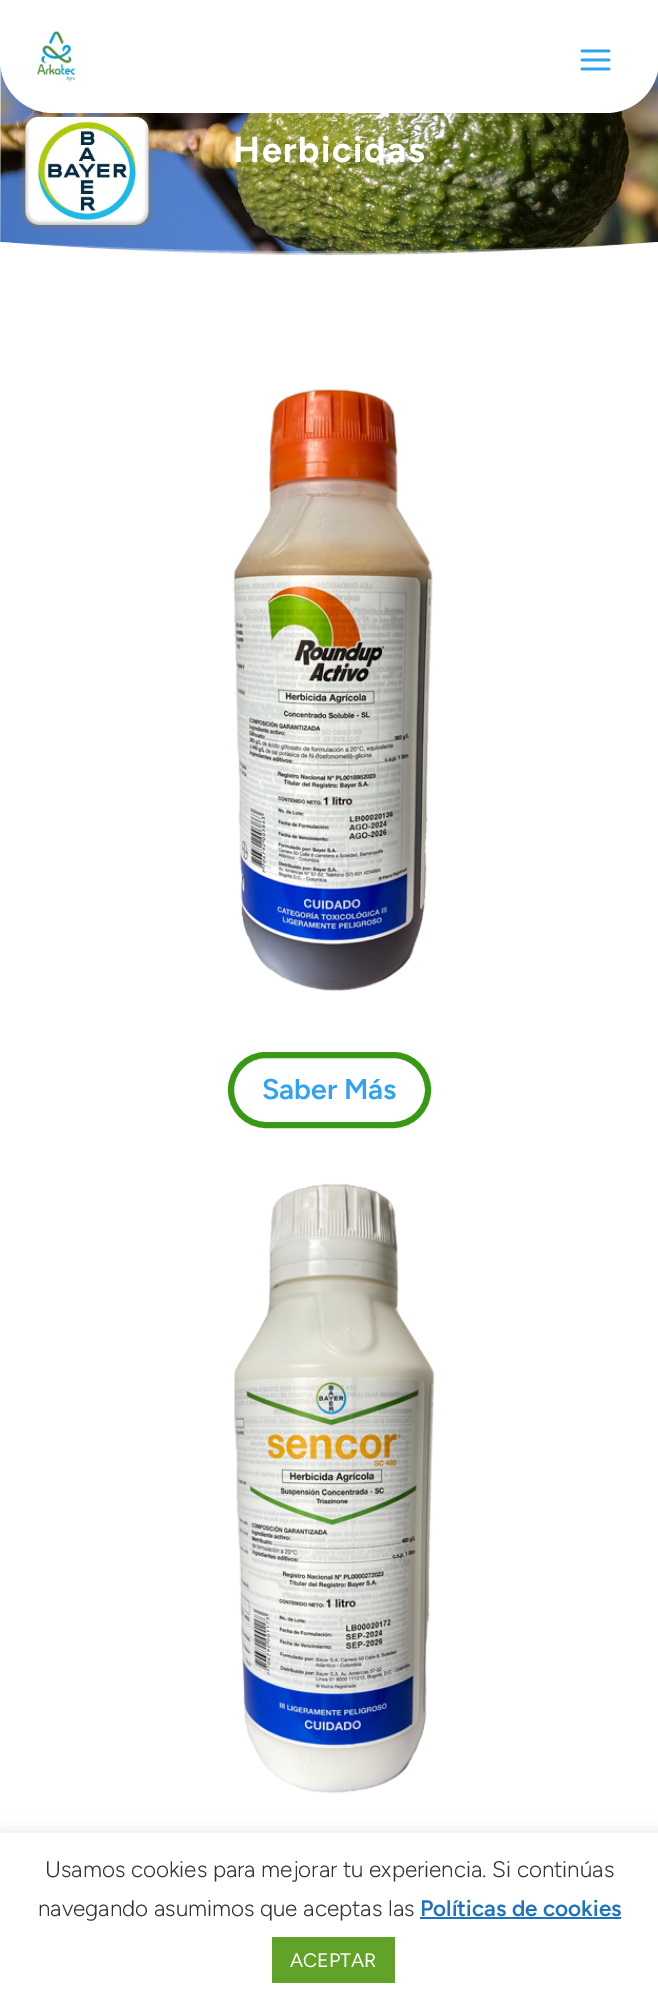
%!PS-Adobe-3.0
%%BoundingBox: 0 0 658 2000
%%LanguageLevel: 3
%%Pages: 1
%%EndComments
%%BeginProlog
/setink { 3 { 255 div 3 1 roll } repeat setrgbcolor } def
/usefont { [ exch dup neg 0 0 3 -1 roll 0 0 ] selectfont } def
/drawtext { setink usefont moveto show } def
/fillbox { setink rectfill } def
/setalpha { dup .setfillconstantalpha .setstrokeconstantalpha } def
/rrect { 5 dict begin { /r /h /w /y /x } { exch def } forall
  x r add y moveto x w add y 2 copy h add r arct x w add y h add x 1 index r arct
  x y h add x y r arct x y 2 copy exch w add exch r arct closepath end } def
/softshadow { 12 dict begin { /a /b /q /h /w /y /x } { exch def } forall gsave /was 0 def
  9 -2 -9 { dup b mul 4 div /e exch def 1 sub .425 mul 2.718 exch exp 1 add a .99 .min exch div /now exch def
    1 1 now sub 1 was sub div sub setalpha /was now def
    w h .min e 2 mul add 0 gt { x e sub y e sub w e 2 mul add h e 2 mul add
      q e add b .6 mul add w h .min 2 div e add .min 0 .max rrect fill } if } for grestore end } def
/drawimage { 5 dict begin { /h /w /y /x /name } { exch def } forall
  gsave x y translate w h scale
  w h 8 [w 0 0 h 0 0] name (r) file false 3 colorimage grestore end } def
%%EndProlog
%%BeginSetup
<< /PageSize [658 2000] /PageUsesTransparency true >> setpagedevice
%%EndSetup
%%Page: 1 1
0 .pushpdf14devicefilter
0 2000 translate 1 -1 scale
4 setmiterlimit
0 0 658 2000 255 255 255 fillbox
(assets/img3.rgb) 0 60 658 195 drawimage
0 0 moveto 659 0 lineto 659 60 lineto 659 89.5 635.5 113 606 113 curveto 53 113 lineto 23.5 113 0 89.5 0 60 curveto closepath fill
(assets/img1.rgb) 37 31 39 51 drawimage
(assets/img2.rgb) 580 49 31 22 drawimage
/Figtree-Light 36 usefont
233 162 moveto 1.5 0 (Herbicidas) ashow
0.3 setalpha
373 251 moveto 167 253 0 242 0 242 curveto 0 255 lineto 658 255 lineto 658 242 lineto 658 242 579 249 373 251 curveto closepath fill
0.5 setalpha
286 253 moveto 490 255 658 243 658 243 curveto 658 255 lineto 0 255 lineto 0 242 lineto 0 242 82 251 286 253 curveto closepath fill
1 setalpha
329 255 moveto 511 255 658 242 658 242 curveto 658 255 lineto 0 255 lineto 0 242 lineto 0 242 147 255 329 255 curveto closepath fill
(assets/img4.rgb) 233 389 200 602 drawimage
56 153 21 setink
6 setlinewidth
231 1055 197 70 35 rrect stroke
(Saber Más) 262 1099 /Figtree-SemiBold 28.5 46 163 242 drawtext
(assets/img5.rgb) 234 1183 201 611 drawimage
172 171 171 setink
0 1832 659 168 0 7.5 0.3 softshadow
0 1833 658 167 255 255 255 fillbox
(Usamos cookies para mejorar tu experiencia. Si continúas) 45 1877 /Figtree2-Light 22.5 51 51 51 drawtext
(navegando asumimos que aceptas las) 38 1916 /Figtree2-Light 22.5 51 51 51 drawtext
(Políticas de cookies) 420 1916 /Figtree-SemiBold 22.5 30 115 190 drawtext
420 1917 201 2 30 115 190 fillbox
272 1937 123 46 97 162 41 fillbox
(ACEPTAR) 290 1967 /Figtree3-Light 19.5 255 255 255 drawtext
.poppdf14devicefilter showpage
%%EOF
